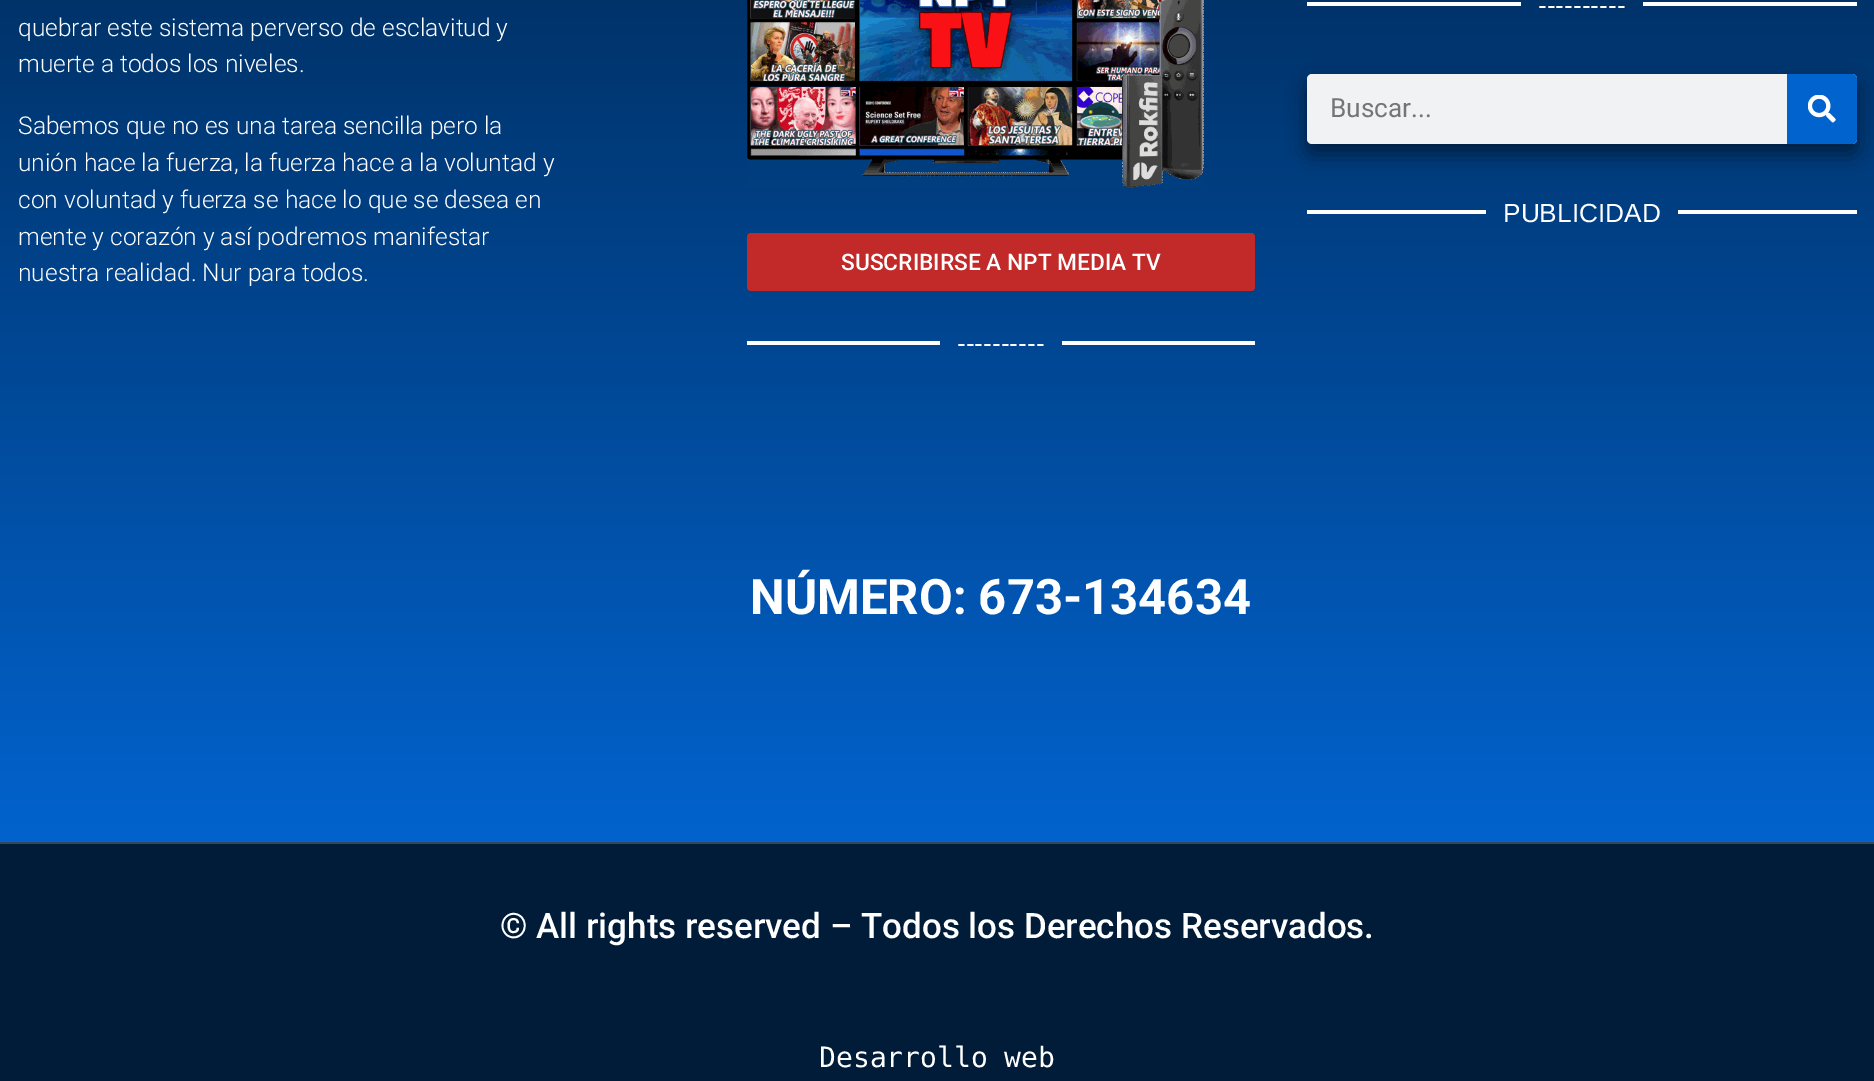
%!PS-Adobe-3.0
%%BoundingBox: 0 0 1874 1081
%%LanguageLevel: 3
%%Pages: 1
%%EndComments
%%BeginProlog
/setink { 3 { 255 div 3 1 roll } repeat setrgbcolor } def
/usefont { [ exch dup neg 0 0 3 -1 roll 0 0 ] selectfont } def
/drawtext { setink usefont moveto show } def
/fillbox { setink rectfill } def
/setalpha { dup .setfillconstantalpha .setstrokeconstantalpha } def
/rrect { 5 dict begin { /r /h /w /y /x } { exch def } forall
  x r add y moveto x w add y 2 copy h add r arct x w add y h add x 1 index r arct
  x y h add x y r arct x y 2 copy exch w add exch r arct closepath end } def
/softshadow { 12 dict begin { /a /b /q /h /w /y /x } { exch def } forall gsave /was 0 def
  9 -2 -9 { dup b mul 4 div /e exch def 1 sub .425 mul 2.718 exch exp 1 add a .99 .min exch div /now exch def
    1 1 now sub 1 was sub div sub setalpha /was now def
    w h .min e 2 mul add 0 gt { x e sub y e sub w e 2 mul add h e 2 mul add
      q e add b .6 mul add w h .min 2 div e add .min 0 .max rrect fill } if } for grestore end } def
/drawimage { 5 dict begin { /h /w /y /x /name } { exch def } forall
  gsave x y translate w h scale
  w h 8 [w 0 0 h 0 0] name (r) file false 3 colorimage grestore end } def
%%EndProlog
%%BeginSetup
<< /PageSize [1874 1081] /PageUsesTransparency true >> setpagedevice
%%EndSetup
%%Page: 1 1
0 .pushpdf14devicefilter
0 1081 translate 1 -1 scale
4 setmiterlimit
0 0 1874 1081 255 255 255 fillbox
gsave 0 0 moveto 1874 0 lineto 1874 842 lineto 0 842 lineto closepath clip newpath
<< /ShadingType 2 /ColorSpace /DeviceRGB /Coords [937 -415 937 842] /Extend [true true] /Function << /FunctionType 2 /Domain [0 1] /C0 [0 0.11 0.22] /C1 [0.004 0.388 0.808] /N 1 >> >> shfill grestore
(quebrar este sistema perverso de esclavitud y) 18 36 /Roboto-Light 24.5 255 255 255 drawtext
(muerte a todos los niveles.) 18 72 /Roboto-Light 24.5 255 255 255 drawtext
(Sabemos que no es una tarea sencilla pero la) 18 134 /Roboto-Light 24.5 255 255 255 drawtext
(unión hace la fuerza, la fuerza hace a la voluntad y) 18 171 /Roboto-Light 24.5 255 255 255 drawtext
(con voluntad y fuerza se hace lo que se desea en) 18 208 /Roboto-Light 24.5 255 255 255 drawtext
(mente y corazón y así podremos manifestar) 18 245 /Roboto-Light 24.5 255 255 255 drawtext
(nuestra realidad. Nur para todos.) 18 281 /Roboto-Light 24.5 255 255 255 drawtext
1307 2 214 4 255 255 255 fillbox
1643 2 214 4 255 255 255 fillbox
(----------) 1538 14 /LiberationSans-Regular 26.25 255 255 255 drawtext
0 0 0 setink
1307 84 550 70 5 10.5 0.5 softshadow
241 242 243 setink
1307 74 550 70 5 rrect fill
(Buscar...) 1330 117 /Roboto-Regular 26.25 117 117 117 drawtext
1 99 206 setink
1787 74 moveto 1852 74 lineto 1855 74 1857 76 1857 79 curveto 1857 139 lineto 1857 142 1855 144 1852 144 curveto 1787 144 lineto closepath fill
(assets/img1.rgb) 1808 95 28 28 drawimage
1307 210 179 4 255 255 255 fillbox
(PUBLICIDAD) 1503 222 /LiberationSans-Regular 26.25 255 255 255 drawtext
1678 210 179 4 255 255 255 fillbox
(assets/img2.rgb) 747 0 457 188 drawimage
194 41 41 setink
747 233 508 58 4 rrect fill
(SUSCRIBIRSE A NPT MEDIA TV) 841 270 /Roboto-Medium 22.75 255 255 255 drawtext
747 341 193 4 255 255 255 fillbox
1062 341 193 4 255 255 255 fillbox
(----------) 957 352 /LiberationSans-Regular 26.25 255 255 255 drawtext
(NÚMERO: 673-134634) 750 614 /Roboto-Bold 49 255 255 255 drawtext
0 844 1874 237 0 28 56 fillbox
0 842 1874 2 48 71 94 fillbox
(© All rights reserved – Todos los Derechos Reservados.) 500 938 /Roboto-Medium 35 255 255 255 drawtext
(Desarrollo web) 819 1067 /DejaVuSansMono-Regular 28 255 255 255 drawtext
.poppdf14devicefilter showpage
%%EOF
